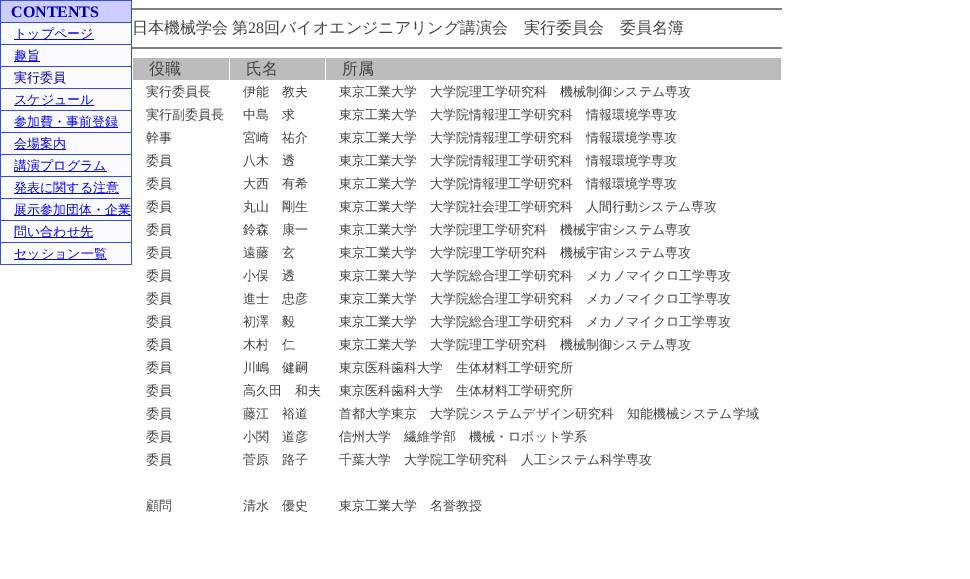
%!PS-Adobe-3.0
%%BoundingBox: 0 0 970 579
%%LanguageLevel: 3
%%Pages: 1
%%EndComments
%%BeginProlog
/setink { 3 { 255 div 3 1 roll } repeat setrgbcolor } def
/usefont { [ exch dup neg 0 0 3 -1 roll 0 0 ] selectfont } def
/drawtext { setink usefont moveto show } def
/fillbox { setink rectfill } def
%%EndProlog
%%BeginSetup
<< /PageSize [970 579] >> setpagedevice
%%EndSetup
%%Page: 1 1
0 579 translate 1 -1 scale
4 setmiterlimit
0 0 970 579 255 255 255 fillbox
0 0 132 265 49 81 219 fillbox
1 1 130 21 204 204 255 fillbox
(CONTENTS) 11 17 /LiberationSerif-Bold 16 0 0 170 drawtext
1 23 130 21 250 250 255 fillbox
14 39 80 1 0 0 238 fillbox
(トップページ) 14 38 /WenQuanYiZenHei-Medium 13 0 0 238 drawtext
1 45 130 21 250 250 255 fillbox
14 61 26 1 0 0 238 fillbox
(趣旨) 14 60 /WenQuanYiZenHei-Medium 13 0 0 238 drawtext
1 67 130 21 250 250 255 fillbox
(実行委員) 14 82 /WenQuanYiZenHei-Medium 13 0 0 170 drawtext
1 89 130 21 250 250 255 fillbox
14 105 80 1 0 0 238 fillbox
(スケジュール) 14 104 /WenQuanYiZenHei-Medium 13 0 0 238 drawtext
1 111 130 21 250 250 255 fillbox
14 127 104 1 0 0 238 fillbox
(参加費・事前登録) 14 126 /WenQuanYiZenHei-Medium 13 0 0 238 drawtext
1 133 130 21 250 250 255 fillbox
14 149 52 1 0 0 238 fillbox
(会場案内) 14 148 /WenQuanYiZenHei-Medium 13 0 0 238 drawtext
1 155 130 21 250 250 255 fillbox
14 171 93 1 0 0 238 fillbox
(講演プログラム) 14 170 /WenQuanYiZenHei-Medium 13 0 0 238 drawtext
1 177 130 21 250 250 255 fillbox
14 193 105 1 0 0 238 fillbox
(発表に関する注意) 14 192 /WenQuanYiZenHei-Medium 13 0 0 238 drawtext
1 199 130 21 250 250 255 fillbox
14 215 117 1 0 0 238 fillbox
(展示参加団体・企業) 14 214 /WenQuanYiZenHei-Medium 13 0 0 238 drawtext
1 221 130 21 250 250 255 fillbox
14 237 79 1 0 0 238 fillbox
(問い合わせ先) 14 236 /WenQuanYiZenHei-Medium 13 0 0 238 drawtext
1 243 130 21 250 250 255 fillbox
14 259 93 1 0 0 238 fillbox
(セッション一覧) 14 258 /WenQuanYiZenHei-Medium 13 0 0 238 drawtext
132 8 650 2 128 128 128 fillbox
/WenQuanYiZenHei-Medium 16 usefont
68 68 68 setink
132 33 moveto -1 0 32 (日本機械学会 第) widthshow
(28) 248 33 /LiberationSerif-Regular 16 68 68 68 drawtext
(回バイオエンジニアリング講演会　実行委員会　委員名簿) 264 33 /WenQuanYiZenHei-Medium 16 68 68 68 drawtext
132 47 650 2 128 128 128 fillbox
133 58 96 22 187 187 187 fillbox
(役職) 149 74 /WenQuanYiZenHei-Medium 16 68 68 68 drawtext
230 58 95 22 187 187 187 fillbox
(氏名) 246 74 /WenQuanYiZenHei-Medium 16 68 68 68 drawtext
326 58 455 22 187 187 187 fillbox
(所属) 342 74 /WenQuanYiZenHei-Medium 16 68 68 68 drawtext
(実行委員長) 146 96 /WenQuanYiZenHei-Medium 13 68 68 68 drawtext
(伊能　教夫) 243 96 /WenQuanYiZenHei-Medium 13 68 68 68 drawtext
(東京工業大学　大学院理工学研究科　機械制御システム専攻) 339 96 /WenQuanYiZenHei-Medium 13 68 68 68 drawtext
(実行副委員長) 146 119 /WenQuanYiZenHei-Medium 13 68 68 68 drawtext
(中島　求) 243 119 /WenQuanYiZenHei-Medium 13 68 68 68 drawtext
(東京工業大学　大学院情報理工学研究科　情報環境学専攻) 339 119 /WenQuanYiZenHei-Medium 13 68 68 68 drawtext
(幹事) 146 142 /WenQuanYiZenHei-Medium 13 68 68 68 drawtext
(宮崎　祐介) 243 142 /WenQuanYiZenHei-Medium 13 68 68 68 drawtext
(東京工業大学　大学院情報理工学研究科　情報環境学専攻) 339 142 /WenQuanYiZenHei-Medium 13 68 68 68 drawtext
(委員) 146 165 /WenQuanYiZenHei-Medium 13 68 68 68 drawtext
(八木　透) 243 165 /WenQuanYiZenHei-Medium 13 68 68 68 drawtext
(東京工業大学　大学院情報理工学研究科　情報環境学専攻) 339 165 /WenQuanYiZenHei-Medium 13 68 68 68 drawtext
(委員) 146 188 /WenQuanYiZenHei-Medium 13 68 68 68 drawtext
(大西　有希) 243 188 /WenQuanYiZenHei-Medium 13 68 68 68 drawtext
(東京工業大学　大学院情報理工学研究科　情報環境学専攻) 339 188 /WenQuanYiZenHei-Medium 13 68 68 68 drawtext
(委員) 146 211 /WenQuanYiZenHei-Medium 13 68 68 68 drawtext
(丸山　剛生) 243 211 /WenQuanYiZenHei-Medium 13 68 68 68 drawtext
(東京工業大学　大学院社会理工学研究科　人間行動システム専攻) 339 211 /WenQuanYiZenHei-Medium 13 68 68 68 drawtext
(委員) 146 234 /WenQuanYiZenHei-Medium 13 68 68 68 drawtext
(鈴森　康一) 243 234 /WenQuanYiZenHei-Medium 13 68 68 68 drawtext
(東京工業大学　大学院理工学研究科　機械宇宙システム専攻) 339 234 /WenQuanYiZenHei-Medium 13 68 68 68 drawtext
(委員) 146 257 /WenQuanYiZenHei-Medium 13 68 68 68 drawtext
(遠藤　玄) 243 257 /WenQuanYiZenHei-Medium 13 68 68 68 drawtext
(東京工業大学　大学院理工学研究科　機械宇宙システム専攻) 339 257 /WenQuanYiZenHei-Medium 13 68 68 68 drawtext
(委員) 146 280 /WenQuanYiZenHei-Medium 13 68 68 68 drawtext
(小俣　透) 243 280 /WenQuanYiZenHei-Medium 13 68 68 68 drawtext
(東京工業大学　大学院総合理工学研究科　メカノマイクロ工学専攻) 339 280 /WenQuanYiZenHei-Medium 13 68 68 68 drawtext
(委員) 146 303 /WenQuanYiZenHei-Medium 13 68 68 68 drawtext
(進士　忠彦) 243 303 /WenQuanYiZenHei-Medium 13 68 68 68 drawtext
(東京工業大学　大学院総合理工学研究科　メカノマイクロ工学専攻) 339 303 /WenQuanYiZenHei-Medium 13 68 68 68 drawtext
(委員) 146 326 /WenQuanYiZenHei-Medium 13 68 68 68 drawtext
(初澤　毅) 243 326 /WenQuanYiZenHei-Medium 13 68 68 68 drawtext
(東京工業大学　大学院総合理工学研究科　メカノマイクロ工学専攻) 339 326 /WenQuanYiZenHei-Medium 13 68 68 68 drawtext
(委員) 146 349 /WenQuanYiZenHei-Medium 13 68 68 68 drawtext
(木村　仁) 243 349 /WenQuanYiZenHei-Medium 13 68 68 68 drawtext
(東京工業大学　大学院理工学研究科　機械制御システム専攻) 339 349 /WenQuanYiZenHei-Medium 13 68 68 68 drawtext
(委員) 146 372 /WenQuanYiZenHei-Medium 13 68 68 68 drawtext
(川嶋　健嗣) 243 372 /WenQuanYiZenHei-Medium 13 68 68 68 drawtext
(東京医科歯科大学　生体材料工学研究所) 339 372 /WenQuanYiZenHei-Medium 13 68 68 68 drawtext
(委員) 146 395 /WenQuanYiZenHei-Medium 13 68 68 68 drawtext
(高久田　和夫) 243 395 /WenQuanYiZenHei-Medium 13 68 68 68 drawtext
(東京医科歯科大学　生体材料工学研究所) 339 395 /WenQuanYiZenHei-Medium 13 68 68 68 drawtext
(委員) 146 418 /WenQuanYiZenHei-Medium 13 68 68 68 drawtext
(藤江　裕道) 243 418 /WenQuanYiZenHei-Medium 13 68 68 68 drawtext
(首都大学東京　大学院システムデザイン研究科　知能機械システム学域) 339 418 /WenQuanYiZenHei-Medium 13 68 68 68 drawtext
(委員) 146 441 /WenQuanYiZenHei-Medium 13 68 68 68 drawtext
(小関　道彦) 243 441 /WenQuanYiZenHei-Medium 13 68 68 68 drawtext
(信州大学　繊維学部　機械・ロボット学系) 339 441 /WenQuanYiZenHei-Medium 13 68 68 68 drawtext
(委員) 146 464 /WenQuanYiZenHei-Medium 13 68 68 68 drawtext
(菅原　路子) 243 464 /WenQuanYiZenHei-Medium 13 68 68 68 drawtext
(千葉大学　大学院工学研究科　人工システム科学専攻) 339 464 /WenQuanYiZenHei-Medium 13 68 68 68 drawtext
(顧問) 146 510 /WenQuanYiZenHei-Medium 13 68 68 68 drawtext
(清水　優史) 243 510 /WenQuanYiZenHei-Medium 13 68 68 68 drawtext
(東京工業大学　名誉教授) 339 510 /WenQuanYiZenHei-Medium 13 68 68 68 drawtext
showpage
%%EOF
